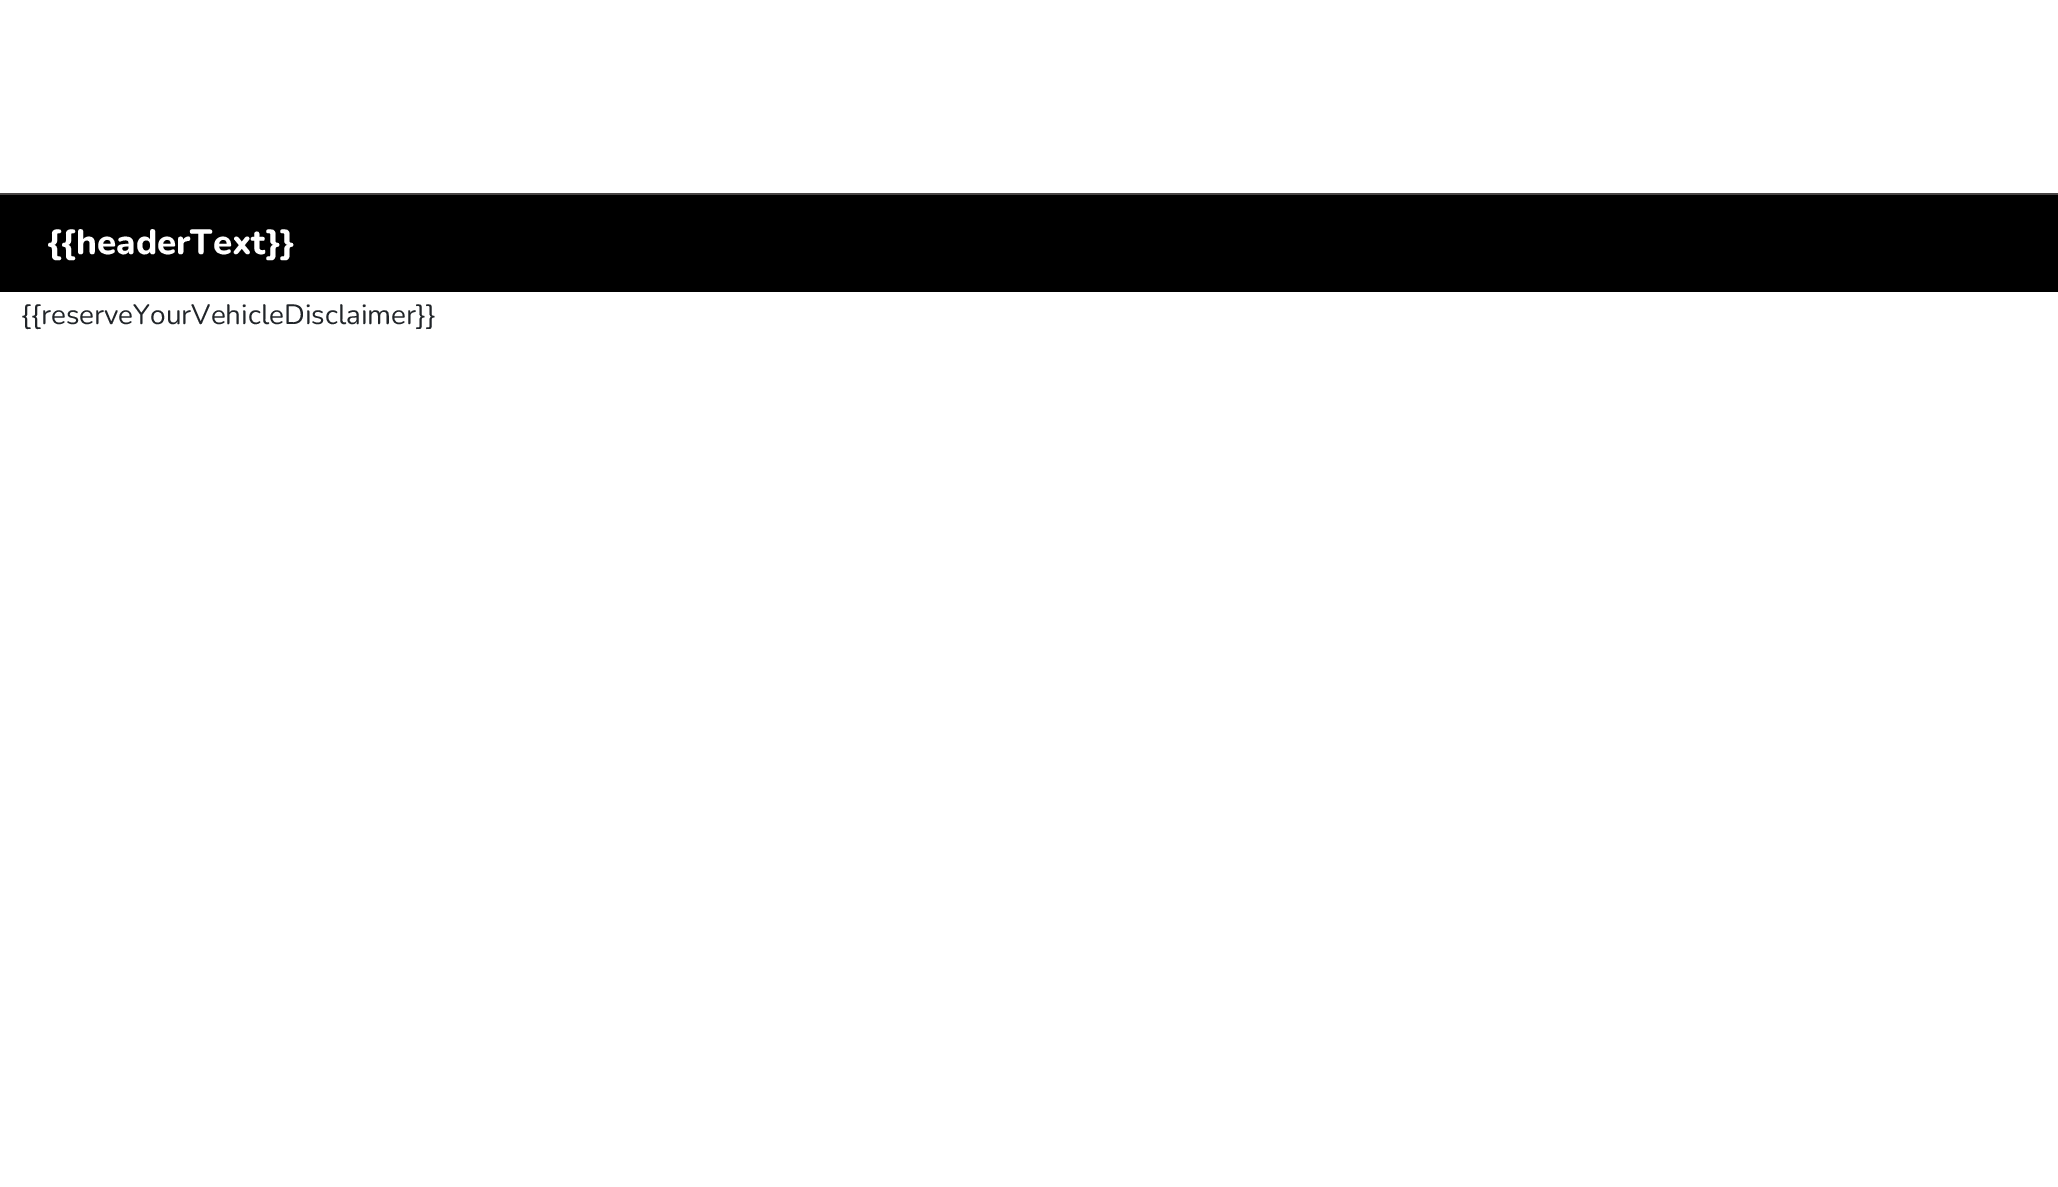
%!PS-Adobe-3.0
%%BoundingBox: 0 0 2058 1187
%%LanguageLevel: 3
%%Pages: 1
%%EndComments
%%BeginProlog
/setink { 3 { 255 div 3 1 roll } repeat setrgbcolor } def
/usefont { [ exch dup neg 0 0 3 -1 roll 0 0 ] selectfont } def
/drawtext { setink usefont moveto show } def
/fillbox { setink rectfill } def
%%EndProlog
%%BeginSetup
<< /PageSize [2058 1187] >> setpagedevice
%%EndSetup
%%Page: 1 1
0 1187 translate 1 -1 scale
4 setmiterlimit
0 0 2058 1187 255 255 255 fillbox
0 195 2058 97 0 0 0 fillbox
0 193 2058 2 72 69 69 fillbox
({{headerText}}) 47 254 /Nunito-ExtraBold 35 255 255 255 drawtext
({{reserveYourVehicleDisclaimer}}) 21 324 /Nunito-Regular 28 33 37 41 drawtext
showpage
%%EOF
